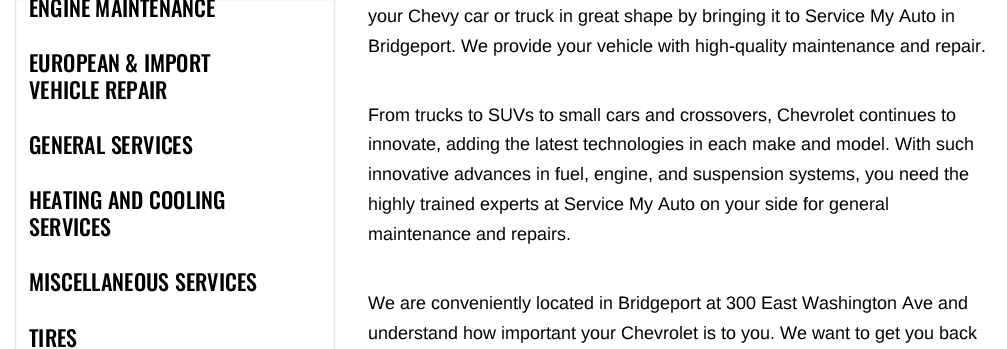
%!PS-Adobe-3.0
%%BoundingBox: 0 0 1007 349
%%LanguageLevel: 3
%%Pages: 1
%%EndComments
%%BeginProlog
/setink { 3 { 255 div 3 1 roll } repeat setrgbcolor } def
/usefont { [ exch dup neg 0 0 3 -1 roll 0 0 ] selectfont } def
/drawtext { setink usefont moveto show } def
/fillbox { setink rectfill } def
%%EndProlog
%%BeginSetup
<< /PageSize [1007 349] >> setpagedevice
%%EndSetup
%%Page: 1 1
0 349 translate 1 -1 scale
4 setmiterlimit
0 0 1007 349 255 255 255 fillbox
231 231 231 setink
15.5 -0.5 319 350 rectstroke
(ENGINE MAINTENANCE) 29 17 /Oswald-Medium 22 0 0 0 drawtext
(EUROPEAN & IMPORT) 29 72 /Oswald-Medium 22 0 0 0 drawtext
(VEHICLE REPAIR) 29 99 /Oswald-Medium 22 0 0 0 drawtext
(GENERAL SERVICES) 29 154 /Oswald-Medium 22 0 0 0 drawtext
(HEATING AND COOLING) 29 209 /Oswald-Medium 22 0 0 0 drawtext
(SERVICES) 29 236 /Oswald-Medium 22 0 0 0 drawtext
(MISCELLANEOUS SERVICES) 29 291 /Oswald-Medium 22 0 0 0 drawtext
(TIRES) 29 347 /Oswald-Medium 22 0 0 0 drawtext
(your Chevy car or truck in great shape by bringing it to Service My Auto in) 368 22 /LiberationSans-Regular 18 0 0 0 drawtext
(Bridgeport. We provide your vehicle with high-quality maintenance and repair.) 368 52 /LiberationSans-Regular 18 0 0 0 drawtext
(From trucks to SUVs to small cars and crossovers, Chevrolet continues to) 368 121 /LiberationSans-Regular 18 0 0 0 drawtext
(innovate, adding the latest technologies in each make and model. With such) 368 150 /LiberationSans-Regular 18 0 0 0 drawtext
(innovative advances in fuel, engine, and suspension systems, you need the) 368 180 /LiberationSans-Regular 18 0 0 0 drawtext
(highly trained experts at Service My Auto on your side for general) 368 210 /LiberationSans-Regular 18 0 0 0 drawtext
(maintenance and repairs.) 368 240 /LiberationSans-Regular 18 0 0 0 drawtext
(We are conveniently located in Bridgeport at 300 East Washington Ave and) 368 309 /LiberationSans-Regular 18 0 0 0 drawtext
(understand how important your Chevrolet is to you. We want to get you back) 368 339 /LiberationSans-Regular 18 0 0 0 drawtext
showpage
%%EOF
